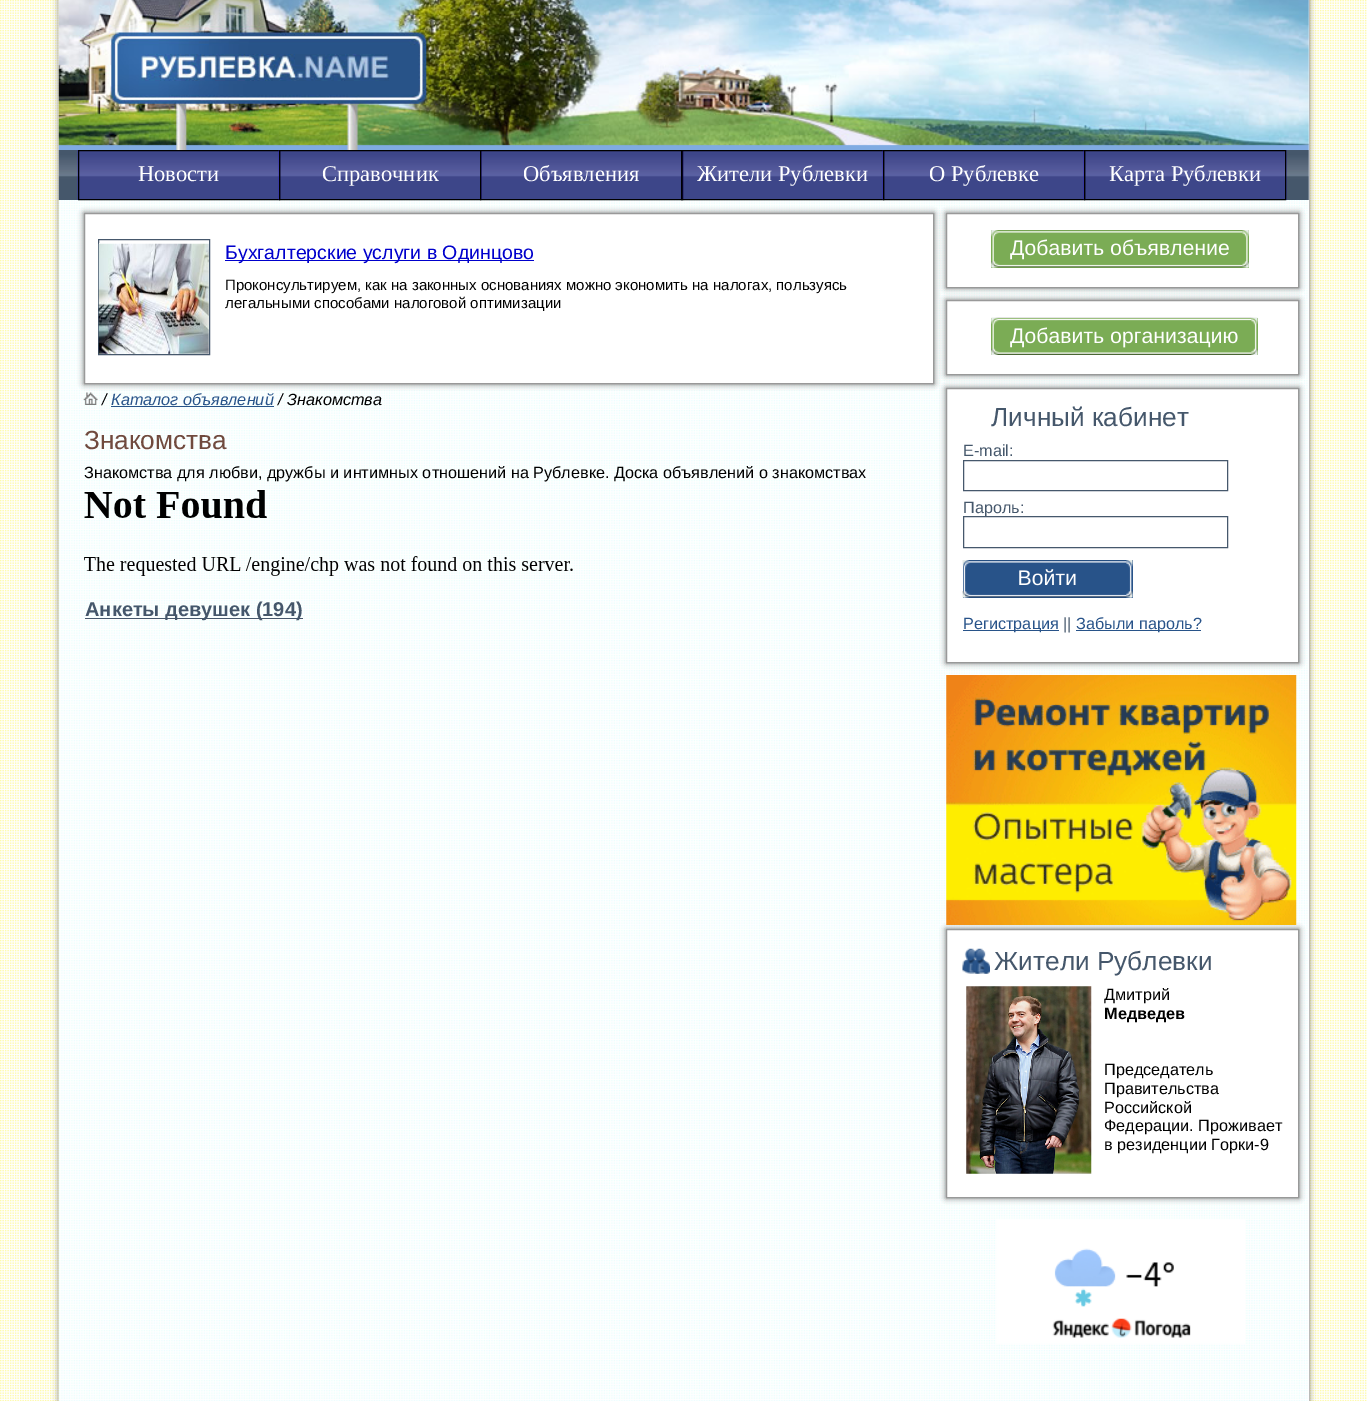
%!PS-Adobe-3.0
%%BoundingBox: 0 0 1367 1401
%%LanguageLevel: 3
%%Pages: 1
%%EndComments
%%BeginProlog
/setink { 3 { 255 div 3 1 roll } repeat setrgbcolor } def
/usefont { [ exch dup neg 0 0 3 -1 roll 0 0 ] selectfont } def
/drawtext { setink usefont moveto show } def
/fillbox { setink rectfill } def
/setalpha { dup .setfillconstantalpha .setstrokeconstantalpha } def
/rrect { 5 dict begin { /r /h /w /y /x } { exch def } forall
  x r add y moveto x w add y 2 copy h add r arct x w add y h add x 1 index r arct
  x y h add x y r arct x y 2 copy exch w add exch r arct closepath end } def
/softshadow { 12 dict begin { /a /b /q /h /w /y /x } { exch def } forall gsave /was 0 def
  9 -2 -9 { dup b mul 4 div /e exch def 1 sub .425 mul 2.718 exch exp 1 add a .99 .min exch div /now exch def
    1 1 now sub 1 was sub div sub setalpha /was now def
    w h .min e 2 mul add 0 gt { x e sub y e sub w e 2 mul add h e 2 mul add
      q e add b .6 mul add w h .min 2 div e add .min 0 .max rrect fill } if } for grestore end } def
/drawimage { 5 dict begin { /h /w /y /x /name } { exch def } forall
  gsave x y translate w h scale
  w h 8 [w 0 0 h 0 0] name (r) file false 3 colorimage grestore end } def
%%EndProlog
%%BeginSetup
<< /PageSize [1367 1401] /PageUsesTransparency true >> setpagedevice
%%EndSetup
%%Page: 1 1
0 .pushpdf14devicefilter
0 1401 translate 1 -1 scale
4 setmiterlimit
0 0 1367 1401 255 255 255 fillbox
(assets/img1.rgb) 0 0 1367 1401 drawimage
102 102 102 setink
59 -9 1250 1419 0 3 1 softshadow
1308 0 1 1401 255 255 255 fillbox
(assets/img2.rgb) 58 0 1250 1401 drawimage
(assets/img3.rgb) 58 0 1251 150 drawimage
(assets/img4.rgb) 141 54 248 27 drawimage
(assets/img5.rgb) 58 150 1251 50 drawimage
0.2 setalpha
77 150 202 50 30 0 255 fillbox
1 setalpha
0 0 0 setink
78.5 150.5 201 49 rectstroke
(Новости) 138 181 /LiberationSerif-Regular 22.5 255 255 255 drawtext
0.2 setalpha
278 150 204 50 30 0 255 fillbox
1 setalpha
0 0 0 setink
279.5 150.5 201 49 rectstroke
(Справочник) 322 181 /LiberationSerif-Regular 22.5 255 255 255 drawtext
0.2 setalpha
481 151 200 48 30 0 255 fillbox
1 setalpha
0 0 0 setink
480.5 150.5 202 49 rectstroke
(Объявления) 523 181 /LiberationSerif-Regular 22.5 255 255 255 drawtext
0.2 setalpha
30 0 255 setink
681.5 150.5 moveto 883.5 150.5 lineto 883.5 199.5 lineto 681.5 199.5 lineto closepath fill
1 setalpha
0 0 0 setink
681.5 150.5 moveto 883.5 150.5 lineto 883.5 199.5 lineto 681.5 199.5 lineto closepath stroke
(Жители Рублевки) 697 181 /LiberationSerif-Regular 22.5 255 255 255 drawtext
0.2 setalpha
882 150 202 50 30 0 255 fillbox
1 setalpha
0 0 0 setink
883.5 150.5 201 49 rectstroke
(О Рублевке) 929 181 /LiberationSerif-Regular 22.5 255 255 255 drawtext
0.2 setalpha
1083 150 204 50 30 0 255 fillbox
1 setalpha
0 0 0 setink
1084.5 150.5 201 49 rectstroke
(Карта Рублевки) 1109 181 /LiberationSerif-Regular 22.5 255 255 255 drawtext
(assets/img7.rgb) 83 392 15 13 drawimage
102 102 102 setink
84 213 850 171 0 3 1 softshadow
255 255 255 setink
84.5 213.5 moveto 933.5 213.5 lineto 933.5 383.5 lineto 84.5 383.5 lineto closepath gsave fill grestore
153 153 153 setink
stroke
70 88 108 setink
98.5 239.5 111 115 rectstroke
(assets/img6.rgb) 98 243 111 111 drawimage
225 260 309 1 0 0 204 fillbox
(Бухгалтерские услуги в Одинцово) 225 259 /LiberationSans-Regular 19.5 0 0 204 drawtext
(Проконсультируем, как на законных основаниях можно экономить на налогах, пользуясь) 225 290 /LiberationSans-Regular 15 0 0 0 drawtext
(легальными способами налоговой оптимизации) 225 308 /LiberationSans-Regular 15 0 0 0 drawtext
(/) 102 405 /LiberationSans-Italic 16.25 0 0 0 drawtext
(Каталог объявлений) 111 405 /LiberationSans-Italic 16.25 40 83 137 drawtext
111 406 163 1 40 83 137 fillbox
(/ Знакомства) 278 405 /LiberationSans-Italic 16.25 0 0 0 drawtext
(Знакомства) 84 449 /LiberationSans-Regular 26.25 112 74 62 drawtext
(Знакомства для любви, дружбы и интимных отношений на Рублевке. Доска объявлений о знакомствах) 84 478 /LiberationSans-Regular 16.25 0 0 0 drawtext
(assets/img8.rgb) 84 490 489 86 drawimage
85 618 218 1 69 87 107 fillbox
(Анкеты девушек \(194\)) 85 616 /LiberationSans-Bold 20 69 87 107 drawtext
102 102 102 setink
946 213 353 75 0 3 1 softshadow
255 255 255 setink
946.5 213.5 moveto 1298.5 213.5 lineto 1298.5 287.5 lineto 946.5 287.5 lineto closepath gsave fill grestore
153 153 153 setink
stroke
991 230 258 38 123 172 85 fillbox
(Добавить объявление) 1010 255 /LiberationSans-Regular 21.25 255 255 255 drawtext
(assets/img9.rgb) 991 230 252 38 drawimage
(assets/img10.rgb) 1242 230 7 38 drawimage
(assets/img11.rgb) 991 261 252 7 drawimage
(assets/img12.rgb) 1242 261 7 7 drawimage
102 102 102 setink
946 300 353 75 0 3 1 softshadow
255 255 255 setink
946.5 300.5 moveto 1298.5 300.5 lineto 1298.5 374.5 lineto 946.5 374.5 lineto closepath gsave fill grestore
153 153 153 setink
stroke
991 318 267 37 123 172 85 fillbox
(Добавить организацию) 1010 343 /LiberationSans-Regular 21.25 255 255 255 drawtext
(assets/img13.rgb) 991 317 261 37 drawimage
(assets/img14.rgb) 1251 317 7 37 drawimage
(assets/img15.rgb) 991 348 261 7 drawimage
(assets/img16.rgb) 1251 348 7 7 drawimage
102 102 102 setink
946 388 353 275 0 3 1 softshadow
255 255 255 setink
946.5 388.5 moveto 1298.5 388.5 lineto 1298.5 662.5 lineto 946.5 662.5 lineto closepath gsave fill grestore
153 153 153 setink
stroke
(Личный кабинет) 991 426 /LiberationSans-Regular 26.25 69 87 107 drawtext
(E-mail:) 963 456 /LiberationSans-Regular 16.25 69 87 107 drawtext
70 88 108 setink
963.5 460.5 264 30 rectstroke
(Пароль:) 963 513 /LiberationSans-Regular 16.25 69 87 107 drawtext
70 88 108 setink
963.5 516.5 264 31 rectstroke
963 560 170 38 40 83 137 fillbox
(Войти) 1018 585 /LiberationSans-Regular 21.25 255 255 255 drawtext
(assets/img17.rgb) 962 560 165 38 drawimage
(assets/img18.rgb) 1126 560 7 38 drawimage
(assets/img19.rgb) 962 591 165 7 drawimage
(assets/img20.rgb) 1126 591 7 7 drawimage
963 630 96 1 40 83 137 fillbox
(Регистрация) 963 629 /LiberationSans-Regular 16.25 40 83 137 drawtext
(||) 1063 629 /LiberationSans-Regular 16.25 69 87 107 drawtext
1076 630 125 1 40 83 137 fillbox
(Забыли пароль?) 1076 629 /LiberationSans-Regular 16.25 40 83 137 drawtext
102 102 102 setink
946 929 353 269 0 3 1 softshadow
(assets/img21.rgb) 946 675 351 250 drawimage
255 255 255 setink
946.5 929.5 moveto 1298.5 929.5 lineto 1298.5 1197.5 lineto 946.5 1197.5 lineto closepath gsave fill grestore
153 153 153 setink
stroke
(assets/img22.rgb) 962 948 28 26 drawimage
(Жители Рублевки) 994 970 /LiberationSans-Regular 26.25 69 87 107 drawtext
(assets/img23.rgb) 966 986 126 188 drawimage
(Дмитрий) 1104 1000 /LiberationSans-Regular 16.25 0 0 0 drawtext
(Медведев) 1104 1019 /LiberationSans-Bold 16.25 0 0 0 drawtext
(Председатель) 1104 1075 /LiberationSans-Regular 16.25 0 0 0 drawtext
(Правительства) 1104 1094 /LiberationSans-Regular 16.25 0 0 0 drawtext
(Российской) 1104 1113 /LiberationSans-Regular 16.25 0 0 0 drawtext
(Федерации. Проживает) 1104 1131 /LiberationSans-Regular 16.25 0 0 0 drawtext
(в резиденции Горки-9) 1104 1150 /LiberationSans-Regular 16.25 0 0 0 drawtext
(assets/img24.rgb) 996 1218 249 126 drawimage
.poppdf14devicefilter showpage
%%EOF
